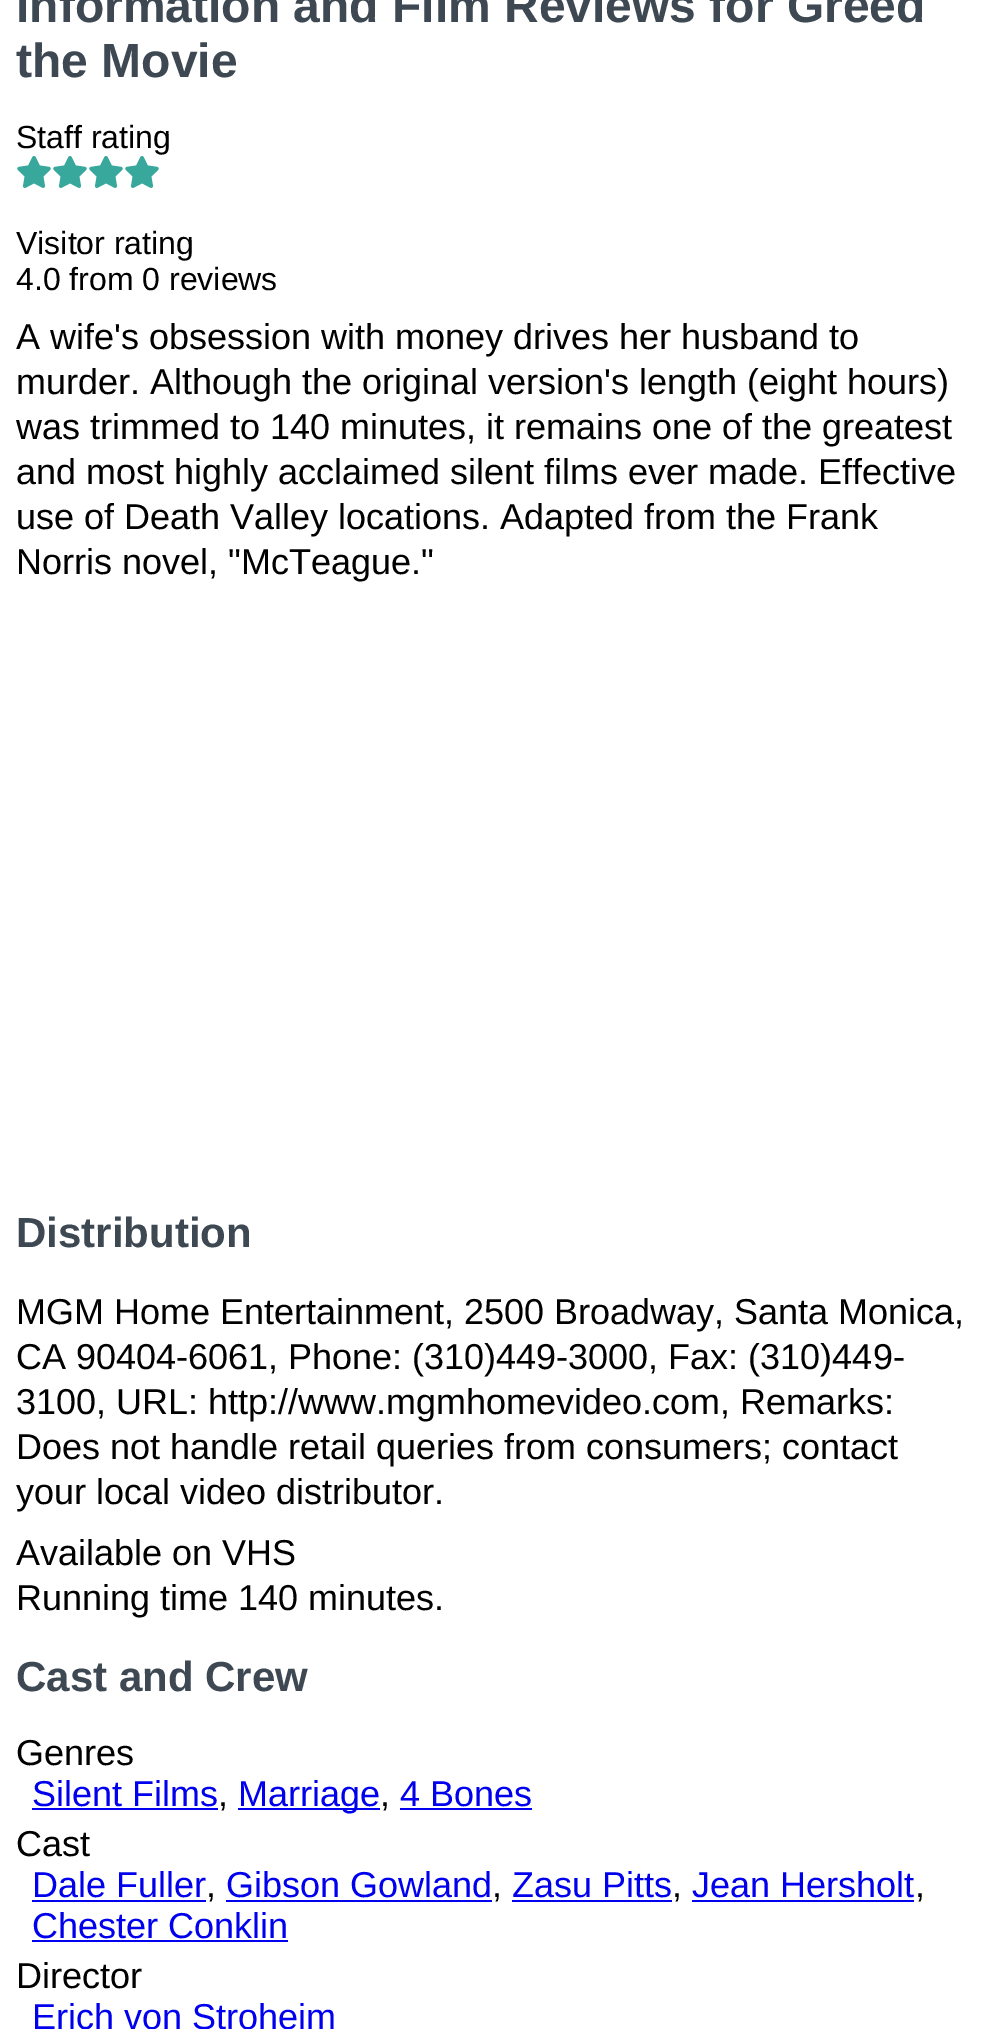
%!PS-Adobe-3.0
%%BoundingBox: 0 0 982 2029
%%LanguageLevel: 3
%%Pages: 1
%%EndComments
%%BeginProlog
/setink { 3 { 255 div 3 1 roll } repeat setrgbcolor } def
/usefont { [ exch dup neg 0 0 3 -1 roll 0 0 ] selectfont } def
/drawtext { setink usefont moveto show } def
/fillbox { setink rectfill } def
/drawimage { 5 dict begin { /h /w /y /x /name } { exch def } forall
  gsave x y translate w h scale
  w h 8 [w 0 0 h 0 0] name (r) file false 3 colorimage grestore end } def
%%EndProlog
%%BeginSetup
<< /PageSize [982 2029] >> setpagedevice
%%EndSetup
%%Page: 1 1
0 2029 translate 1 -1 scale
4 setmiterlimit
0 0 982 2029 255 255 255 fillbox
(Information and Film Reviews for Greed) 16 22 /LiberationSans-Bold 48 61 72 82 drawtext
(the Movie) 16 77 /LiberationSans-Bold 48 61 72 82 drawtext
(Staff rating) 16 148 /LiberationSans-Regular 32 0 0 0 drawtext
(assets/img1.rgb) 17 156 34 32 drawimage
(assets/img1.rgb) 53 156 34 32 drawimage
(assets/img1.rgb) 89 156 34 32 drawimage
(assets/img1.rgb) 125 156 34 32 drawimage
(Visitor rating) 16 254 /LiberationSans-Regular 32 0 0 0 drawtext
(4.0 from 0 reviews) 16 290 /LiberationSans-Regular 32 0 0 0 drawtext
(A wife's obsession with money drives her husband to) 16 349 /LiberationSans-Regular 36 0 0 0 drawtext
(murder. Although the original version's length \(eight hours\)) 16 394 /LiberationSans-Regular 36 0 0 0 drawtext
(was trimmed to 140 minutes, it remains one of the greatest) 16 439 /LiberationSans-Regular 36 0 0 0 drawtext
(and most highly acclaimed silent films ever made. Effective) 16 484 /LiberationSans-Regular 36 0 0 0 drawtext
(use of Death Valley locations. Adapted from the Frank) 16 529 /LiberationSans-Regular 36 0 0 0 drawtext
(Norris novel, "McTeague.") 16 574 /LiberationSans-Regular 36 0 0 0 drawtext
(Distribution) 16 1247 /LiberationSans-Bold 42 61 72 82 drawtext
(MGM Home Entertainment, 2500 Broadway, Santa Monica,) 16 1324 /LiberationSans-Regular 36 0 0 0 drawtext
(CA 90404-6061, Phone: \(310\)449-3000, Fax: \(310\)449-) 16 1369 /LiberationSans-Regular 36 0 0 0 drawtext
(3100, URL: http://www.mgmhomevideo.com, Remarks:) 16 1414 /LiberationSans-Regular 36 0 0 0 drawtext
(Does not handle retail queries from consumers; contact) 16 1459 /LiberationSans-Regular 36 0 0 0 drawtext
(your local video distributor.) 16 1504 /LiberationSans-Regular 36 0 0 0 drawtext
(Available on VHS) 16 1565 /LiberationSans-Regular 36 0 0 0 drawtext
(Running time 140 minutes.) 16 1610 /LiberationSans-Regular 36 0 0 0 drawtext
(Cast and Crew) 16 1691 /LiberationSans-Bold 42 61 72 82 drawtext
(Genres) 16 1765 /LiberationSans-Regular 36 0 0 0 drawtext
(Silent Films) 32 1806 /LiberationSans-Regular 36 0 0 238 drawtext
32 1808 186 2 0 0 238 fillbox
(,) 218 1806 /LiberationSans-Regular 36 0 0 0 drawtext
238 1808 142 2 0 0 238 fillbox
(Marriage) 238 1806 /LiberationSans-Regular 36 0 0 238 drawtext
(,) 380 1806 /LiberationSans-Regular 36 0 0 0 drawtext
(4 Bones) 400 1806 /LiberationSans-Regular 36 0 0 238 drawtext
400 1808 132 2 0 0 238 fillbox
(Cast) 16 1856 /LiberationSans-Regular 36 0 0 0 drawtext
(Dale Fuller) 32 1897 /LiberationSans-Regular 36 0 0 238 drawtext
32 1900 174 2 0 0 238 fillbox
(,) 206 1897 /LiberationSans-Regular 36 0 0 0 drawtext
(Gibson Gowland) 226 1897 /LiberationSans-Regular 36 0 0 238 drawtext
226 1900 266 2 0 0 238 fillbox
(,) 492 1897 /LiberationSans-Regular 36 0 0 0 drawtext
(Zasu Pitts) 512 1897 /LiberationSans-Regular 36 0 0 238 drawtext
512 1900 160 2 0 0 238 fillbox
(,) 672 1897 /LiberationSans-Regular 36 0 0 0 drawtext
(Jean Hersholt) 692 1897 /LiberationSans-Regular 36 0 0 238 drawtext
692 1900 222 2 0 0 238 fillbox
(,) 915 1897 /LiberationSans-Regular 36 0 0 0 drawtext
(Chester Conklin) 32 1938 /LiberationSans-Regular 36 0 0 238 drawtext
32 1940 256 2 0 0 238 fillbox
(Director) 16 1988 /LiberationSans-Regular 36 0 0 0 drawtext
(Erich von Stroheim) 32 2029 /LiberationSans-Regular 36 0 0 238 drawtext
showpage
%%EOF
